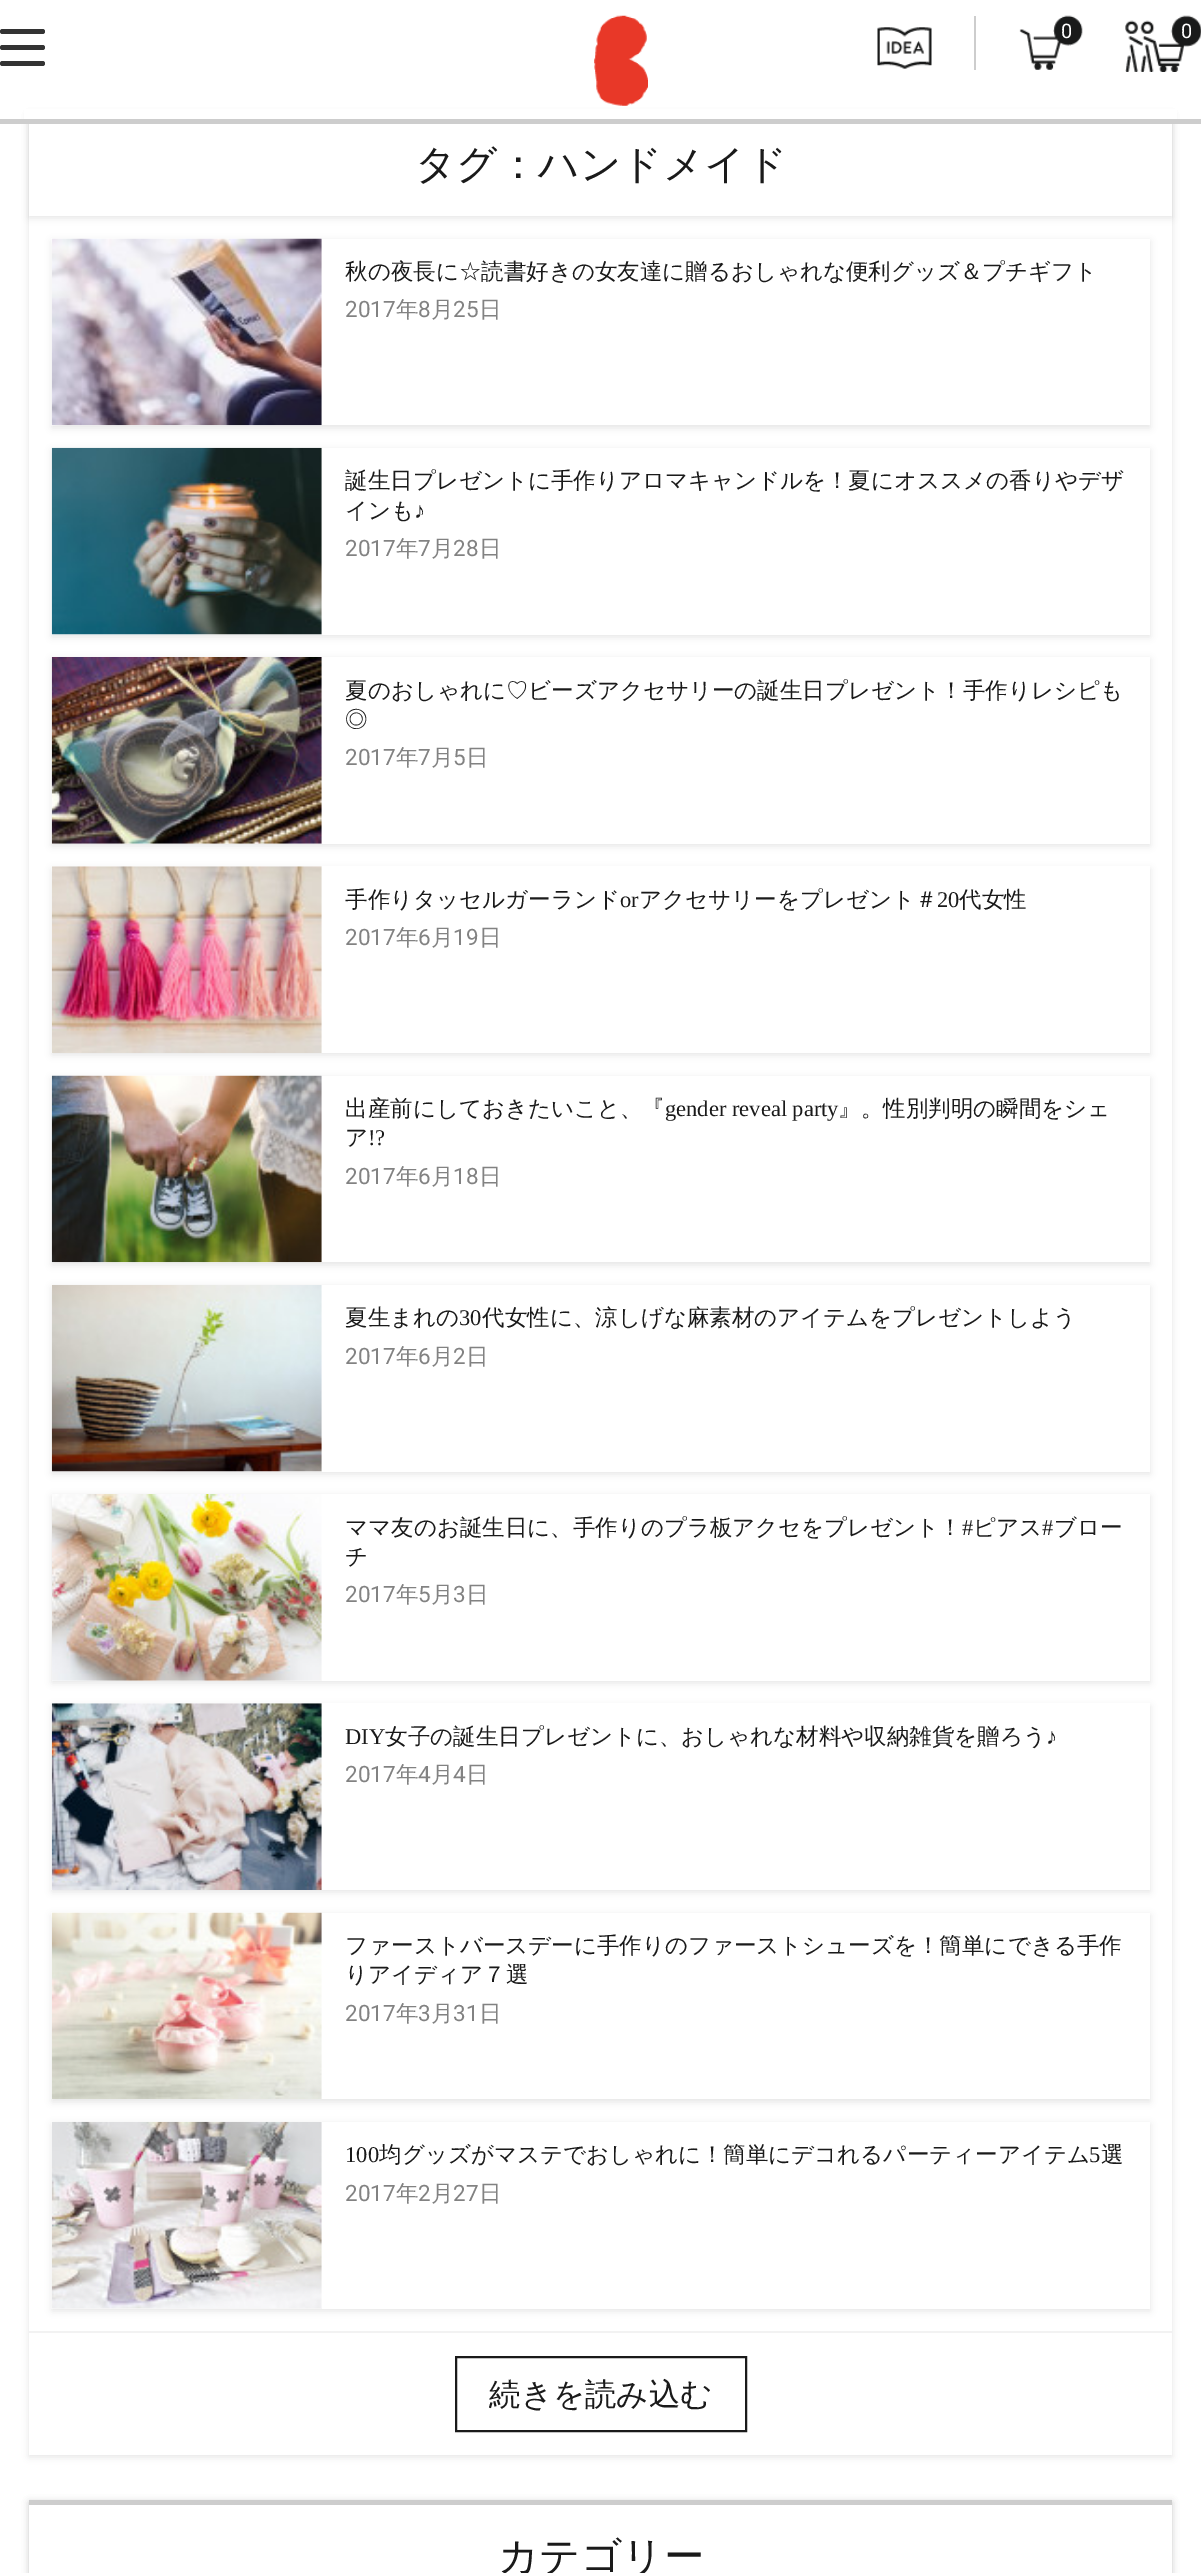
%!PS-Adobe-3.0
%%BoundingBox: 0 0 1201 2573
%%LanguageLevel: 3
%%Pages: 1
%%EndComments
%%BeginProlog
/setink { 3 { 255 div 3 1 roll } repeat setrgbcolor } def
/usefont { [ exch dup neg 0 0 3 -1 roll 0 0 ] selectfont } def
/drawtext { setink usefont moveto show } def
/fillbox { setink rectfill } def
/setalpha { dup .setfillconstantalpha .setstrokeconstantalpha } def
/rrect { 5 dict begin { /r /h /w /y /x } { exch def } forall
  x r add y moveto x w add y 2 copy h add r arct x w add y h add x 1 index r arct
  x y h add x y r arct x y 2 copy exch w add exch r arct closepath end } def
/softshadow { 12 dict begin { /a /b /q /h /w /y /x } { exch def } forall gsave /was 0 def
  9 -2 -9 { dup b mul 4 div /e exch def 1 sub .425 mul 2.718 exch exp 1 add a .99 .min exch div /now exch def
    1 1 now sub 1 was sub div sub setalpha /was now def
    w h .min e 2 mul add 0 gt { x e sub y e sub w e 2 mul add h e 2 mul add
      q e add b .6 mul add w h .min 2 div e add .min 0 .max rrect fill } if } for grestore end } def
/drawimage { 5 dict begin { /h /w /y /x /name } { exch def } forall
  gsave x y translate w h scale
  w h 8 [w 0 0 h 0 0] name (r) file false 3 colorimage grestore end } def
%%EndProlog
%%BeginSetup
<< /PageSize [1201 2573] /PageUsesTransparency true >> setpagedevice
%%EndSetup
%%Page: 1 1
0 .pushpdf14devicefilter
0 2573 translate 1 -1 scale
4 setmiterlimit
0 0 1201 2573 255 255 255 fillbox
gsave
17 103 moveto 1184 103 lineto 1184 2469 lineto 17 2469 lineto closepath 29 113 moveto 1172 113 lineto 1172 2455 lineto 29 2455 lineto closepath eoclip newpath
0 0 0 setink
29 115 1143 2342 0 3.5 0.1 softshadow
grestore
gsave
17 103 moveto 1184 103 lineto 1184 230 lineto 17 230 lineto closepath 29 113 moveto 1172 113 lineto 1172 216 lineto 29 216 lineto closepath eoclip newpath
0 0 0 setink
29 115 1143 103 0 3.5 0.1 softshadow
grestore
24 109 1153 10 255 255 255 fillbox
0 119 1201 5 205 205 205 fillbox
51 51 51 setink
0 29 45 5 2.5 rrect fill
0 45 45 5 2.5 rrect fill
0 61 45 5 2.5 rrect fill
(assets/img1.rgb) 594 15 54 91 drawimage
974 16 2 54 205 205 205 fillbox
(assets/img2.rgb) 877 27 55 42 drawimage
(assets/img3.rgb) 1019 15 64 55 drawimage
(0) 1061 38 /Roboto-Regular 20 255 255 255 drawtext
(assets/img4.rgb) 1125 15 76 57 drawimage
(0) 1181 38 /Roboto-Regular 20 255 255 255 drawtext
(タグ：ハンドメイド) 415 178 /WenQuanYiZenHei-Medium 40.5 26 26 26 drawtext
gsave
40 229 moveto 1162 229 lineto 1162 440 lineto 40 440 lineto closepath 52 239 moveto 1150 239 lineto 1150 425 lineto 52 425 lineto closepath eoclip newpath
0 0 0 setink
52 241 1098 187 0 3.5 0.1 softshadow
grestore
(assets/img5.rgb) 51 238 271 188 drawimage
(秋の夜長に☆読書好きの女友達に贈るおしゃれな便利グッズ＆プチギフト) 345 279 /WenQuanYiZenHei-Medium 22.5 26 26 26 drawtext
(2017) 345 317 /Roboto-Regular 22.5 130 130 130 drawtext
(年) 396 317 /WenQuanYiZenHei-Medium 22.5 130 130 130 drawtext
(8) 418 317 /Roboto-Regular 22.5 130 130 130 drawtext
(月) 431 317 /WenQuanYiZenHei-Medium 22.5 130 130 130 drawtext
(25) 453 317 /Roboto-Regular 22.5 130 130 130 drawtext
(日) 479 317 /WenQuanYiZenHei-Medium 22.5 130 130 130 drawtext
gsave
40 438 moveto 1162 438 lineto 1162 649 lineto 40 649 lineto closepath 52 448 moveto 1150 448 lineto 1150 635 lineto 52 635 lineto closepath eoclip newpath
0 0 0 setink
52 450 1098 187 0 3.5 0.1 softshadow
grestore
(assets/img6.rgb) 51 447 271 188 drawimage
(誕生日プレゼントに手作りアロマキャンドルを！夏にオススメの香りやデザ) 345 488 /WenQuanYiZenHei-Medium 22.5 26 26 26 drawtext
(インも) 345 518 /WenQuanYiZenHei-Medium 22.5 26 26 26 drawtext
(♪) 414 518 /LiberationSerif-Regular 22.5 26 26 26 drawtext
(2017) 345 556 /Roboto-Regular 22.5 130 130 130 drawtext
(年) 396 556 /WenQuanYiZenHei-Medium 22.5 130 130 130 drawtext
(7) 418 556 /Roboto-Regular 22.5 130 130 130 drawtext
(月) 431 556 /WenQuanYiZenHei-Medium 22.5 130 130 130 drawtext
(28) 453 556 /Roboto-Regular 22.5 130 130 130 drawtext
(日) 479 556 /WenQuanYiZenHei-Medium 22.5 130 130 130 drawtext
gsave
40 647 moveto 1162 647 lineto 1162 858 lineto 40 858 lineto closepath 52 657 moveto 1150 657 lineto 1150 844 lineto 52 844 lineto closepath eoclip newpath
0 0 0 setink
52 659 1098 187 0 3.5 0.1 softshadow
grestore
(assets/img7.rgb) 51 657 271 187 drawimage
(夏のおしゃれに♡ビーズアクセサリーの誕生日プレゼント！手作りレシピも) 345 698 /WenQuanYiZenHei-Medium 22.5 26 26 26 drawtext
(◎) 345 727 /WenQuanYiZenHei-Medium 22.5 26 26 26 drawtext
(2017) 345 765 /Roboto-Regular 22.5 130 130 130 drawtext
(年) 396 765 /WenQuanYiZenHei-Medium 22.5 130 130 130 drawtext
(7) 418 765 /Roboto-Regular 22.5 130 130 130 drawtext
(月) 431 765 /WenQuanYiZenHei-Medium 22.5 130 130 130 drawtext
(5) 453 765 /Roboto-Regular 22.5 130 130 130 drawtext
(日) 466 765 /WenQuanYiZenHei-Medium 22.5 130 130 130 drawtext
gsave
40 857 moveto 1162 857 lineto 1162 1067 lineto 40 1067 lineto closepath 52 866 moveto 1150 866 lineto 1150 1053 lineto 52 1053 lineto closepath eoclip newpath
0 0 0 setink
52 869 1098 186 0 3.5 0.1 softshadow
grestore
(assets/img8.rgb) 51 866 271 187 drawimage
(手作りタッセルガーランド) 345 907 /WenQuanYiZenHei-Medium 22.5 26 26 26 drawtext
(or) 620 907 /LiberationSerif-Regular 22.5 26 26 26 drawtext
(アクセサリーをプレゼント＃) 639 907 /WenQuanYiZenHei-Medium 22.5 26 26 26 drawtext
(20) 937 907 /LiberationSerif-Regular 22.5 26 26 26 drawtext
(代女性) 959 907 /WenQuanYiZenHei-Medium 22.5 26 26 26 drawtext
(2017) 345 945 /Roboto-Regular 22.5 130 130 130 drawtext
(年) 396 945 /WenQuanYiZenHei-Medium 22.5 130 130 130 drawtext
(6) 418 945 /Roboto-Regular 22.5 130 130 130 drawtext
(月) 431 945 /WenQuanYiZenHei-Medium 22.5 130 130 130 drawtext
(19) 453 945 /Roboto-Regular 22.5 130 130 130 drawtext
(日) 479 945 /WenQuanYiZenHei-Medium 22.5 130 130 130 drawtext
gsave
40 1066 moveto 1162 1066 lineto 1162 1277 lineto 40 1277 lineto closepath 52 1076 moveto 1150 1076 lineto 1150 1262 lineto 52 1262 lineto closepath eoclip newpath
0 0 0 setink
52 1078 1098 187 0 3.5 0.1 softshadow
grestore
(assets/img9.rgb) 51 1075 271 188 drawimage
(出産前にしておきたいこと、『) 345 1116 /WenQuanYiZenHei-Medium 22.5 26 26 26 drawtext
(gender reveal party) 665 1116 /LiberationSerif-Regular 22.5 26 26 26 drawtext
(』。性別判明の瞬間をシェ) 838 1116 /WenQuanYiZenHei-Medium 22.5 26 26 26 drawtext
(ア) 345 1145 /WenQuanYiZenHei-Medium 22.5 26 26 26 drawtext
(!?) 368 1145 /LiberationSerif-Regular 22.5 26 26 26 drawtext
(2017) 345 1184 /Roboto-Regular 22.5 130 130 130 drawtext
(年) 396 1184 /WenQuanYiZenHei-Medium 22.5 130 130 130 drawtext
(6) 418 1184 /Roboto-Regular 22.5 130 130 130 drawtext
(月) 431 1184 /WenQuanYiZenHei-Medium 22.5 130 130 130 drawtext
(18) 453 1184 /Roboto-Regular 22.5 130 130 130 drawtext
(日) 479 1184 /WenQuanYiZenHei-Medium 22.5 130 130 130 drawtext
gsave
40 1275 moveto 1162 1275 lineto 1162 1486 lineto 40 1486 lineto closepath 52 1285 moveto 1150 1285 lineto 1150 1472 lineto 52 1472 lineto closepath eoclip newpath
0 0 0 setink
52 1287 1098 187 0 3.5 0.1 softshadow
grestore
(assets/img10.rgb) 51 1285 271 187 drawimage
(夏生まれの) 345 1325 /WenQuanYiZenHei-Medium 22.5 26 26 26 drawtext
(30) 459 1325 /LiberationSerif-Regular 22.5 26 26 26 drawtext
(代女性に、涼しげな麻素材のアイテムをプレゼントしよう) 482 1325 /WenQuanYiZenHei-Medium 22.5 26 26 26 drawtext
(2017) 345 1364 /Roboto-Regular 22.5 130 130 130 drawtext
(年) 396 1364 /WenQuanYiZenHei-Medium 22.5 130 130 130 drawtext
(6) 418 1364 /Roboto-Regular 22.5 130 130 130 drawtext
(月) 431 1364 /WenQuanYiZenHei-Medium 22.5 130 130 130 drawtext
(2) 453 1364 /Roboto-Regular 22.5 130 130 130 drawtext
(日) 466 1364 /WenQuanYiZenHei-Medium 22.5 130 130 130 drawtext
gsave
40 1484 moveto 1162 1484 lineto 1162 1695 lineto 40 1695 lineto closepath 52 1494 moveto 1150 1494 lineto 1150 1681 lineto 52 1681 lineto closepath eoclip newpath
0 0 0 setink
52 1496 1098 187 0 3.5 0.1 softshadow
grestore
(assets/img11.rgb) 52 1494 270 187 drawimage
(ママ友のお誕生日に、手作りのプラ板アクセをプレゼント！) 345 1535 /WenQuanYiZenHei-Medium 22.5 26 26 26 drawtext
(#) 962 1535 /LiberationSerif-Regular 22.5 26 26 26 drawtext
(ピアス) 973 1535 /WenQuanYiZenHei-Medium 22.5 26 26 26 drawtext
(#) 1042 1535 /LiberationSerif-Regular 22.5 26 26 26 drawtext
(ブロー) 1054 1535 /WenQuanYiZenHei-Medium 22.5 26 26 26 drawtext
(チ) 345 1564 /WenQuanYiZenHei-Medium 22.5 26 26 26 drawtext
(2017) 345 1602 /Roboto-Regular 22.5 130 130 130 drawtext
(年) 396 1602 /WenQuanYiZenHei-Medium 22.5 130 130 130 drawtext
(5) 418 1602 /Roboto-Regular 22.5 130 130 130 drawtext
(月) 431 1602 /WenQuanYiZenHei-Medium 22.5 130 130 130 drawtext
(3) 453 1602 /Roboto-Regular 22.5 130 130 130 drawtext
(日) 466 1602 /WenQuanYiZenHei-Medium 22.5 130 130 130 drawtext
gsave
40 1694 moveto 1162 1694 lineto 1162 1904 lineto 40 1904 lineto closepath 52 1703 moveto 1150 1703 lineto 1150 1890 lineto 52 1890 lineto closepath eoclip newpath
0 0 0 setink
52 1706 1098 186 0 3.5 0.1 softshadow
grestore
(assets/img12.rgb) 51 1703 271 187 drawimage
(DIY) 345 1744 /LiberationSerif-Regular 22.5 26 26 26 drawtext
(女子の誕生日プレゼントに、おしゃれな材料や収納雑貨を贈ろう) 385 1744 /WenQuanYiZenHei-Medium 22.5 26 26 26 drawtext
(♪) 1046 1744 /LiberationSerif-Regular 22.5 26 26 26 drawtext
(2017) 345 1782 /Roboto-Regular 22.5 130 130 130 drawtext
(年) 396 1782 /WenQuanYiZenHei-Medium 22.5 130 130 130 drawtext
(4) 418 1782 /Roboto-Regular 22.5 130 130 130 drawtext
(月) 431 1782 /WenQuanYiZenHei-Medium 22.5 130 130 130 drawtext
(4) 453 1782 /Roboto-Regular 22.5 130 130 130 drawtext
(日) 466 1782 /WenQuanYiZenHei-Medium 22.5 130 130 130 drawtext
gsave
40 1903 moveto 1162 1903 lineto 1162 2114 lineto 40 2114 lineto closepath 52 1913 moveto 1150 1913 lineto 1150 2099 lineto 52 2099 lineto closepath eoclip newpath
0 0 0 setink
52 1915 1098 187 0 3.5 0.1 softshadow
grestore
(assets/img13.rgb) 51 1912 271 187 drawimage
(ファーストバースデーに手作りのファーストシューズを！簡単にできる手作) 345 1953 /WenQuanYiZenHei-Medium 22.5 26 26 26 drawtext
(りアイディア７選) 345 1982 /WenQuanYiZenHei-Medium 22.5 26 26 26 drawtext
(2017) 345 2021 /Roboto-Regular 22.5 130 130 130 drawtext
(年) 396 2021 /WenQuanYiZenHei-Medium 22.5 130 130 130 drawtext
(3) 418 2021 /Roboto-Regular 22.5 130 130 130 drawtext
(月) 431 2021 /WenQuanYiZenHei-Medium 22.5 130 130 130 drawtext
(31) 453 2021 /Roboto-Regular 22.5 130 130 130 drawtext
(日) 479 2021 /WenQuanYiZenHei-Medium 22.5 130 130 130 drawtext
gsave
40 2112 moveto 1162 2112 lineto 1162 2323 lineto 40 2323 lineto closepath 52 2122 moveto 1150 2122 lineto 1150 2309 lineto 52 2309 lineto closepath eoclip newpath
0 0 0 setink
52 2124 1098 187 0 3.5 0.1 softshadow
grestore
(assets/img14.rgb) 51 2121 271 188 drawimage
(100) 345 2162 /LiberationSerif-Regular 22.5 26 26 26 drawtext
(均グッズがマステでおしゃれに！簡単にデコれるパーティーアイテム) 379 2162 /WenQuanYiZenHei-Medium 22.5 26 26 26 drawtext
(5) 1089 2162 /LiberationSerif-Regular 22.5 26 26 26 drawtext
(選) 1101 2162 /WenQuanYiZenHei-Medium 22.5 26 26 26 drawtext
(2017) 345 2201 /Roboto-Regular 22.5 130 130 130 drawtext
(年) 396 2201 /WenQuanYiZenHei-Medium 22.5 130 130 130 drawtext
(2) 418 2201 /Roboto-Regular 22.5 130 130 130 drawtext
(月) 431 2201 /WenQuanYiZenHei-Medium 22.5 130 130 130 drawtext
(27) 453 2201 /Roboto-Regular 22.5 130 130 130 drawtext
(日) 479 2201 /WenQuanYiZenHei-Medium 22.5 130 130 130 drawtext
0.05 setalpha
29 2331 1143 2 0 0 0 fillbox
1 setalpha
26 26 26 setink
2 setlinewidth
456 2357 290 74 rectstroke
(続きを読み込む) 489 2405 /WenQuanYiZenHei-Medium 31.5 26 26 26 drawtext
gsave
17 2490 moveto 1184 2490 lineto 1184 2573 lineto 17 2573 lineto closepath 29 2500 moveto 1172 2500 lineto 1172 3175 lineto 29 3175 lineto closepath eoclip newpath
0 0 0 setink
29 2502 1143 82 0 3.5 0.1 softshadow
grestore
gsave
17 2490 moveto 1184 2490 lineto 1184 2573 lineto 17 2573 lineto closepath 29 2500 moveto 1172 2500 lineto 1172 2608 lineto 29 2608 lineto closepath eoclip newpath
0 0 0 setink
29 2502 1143 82 0 3.5 0.1 softshadow
grestore
29 2500 1143 5 205 205 205 fillbox
(カテゴリー) 498 2570 /WenQuanYiZenHei-Medium 40.5 26 26 26 drawtext
.poppdf14devicefilter showpage
%%EOF
